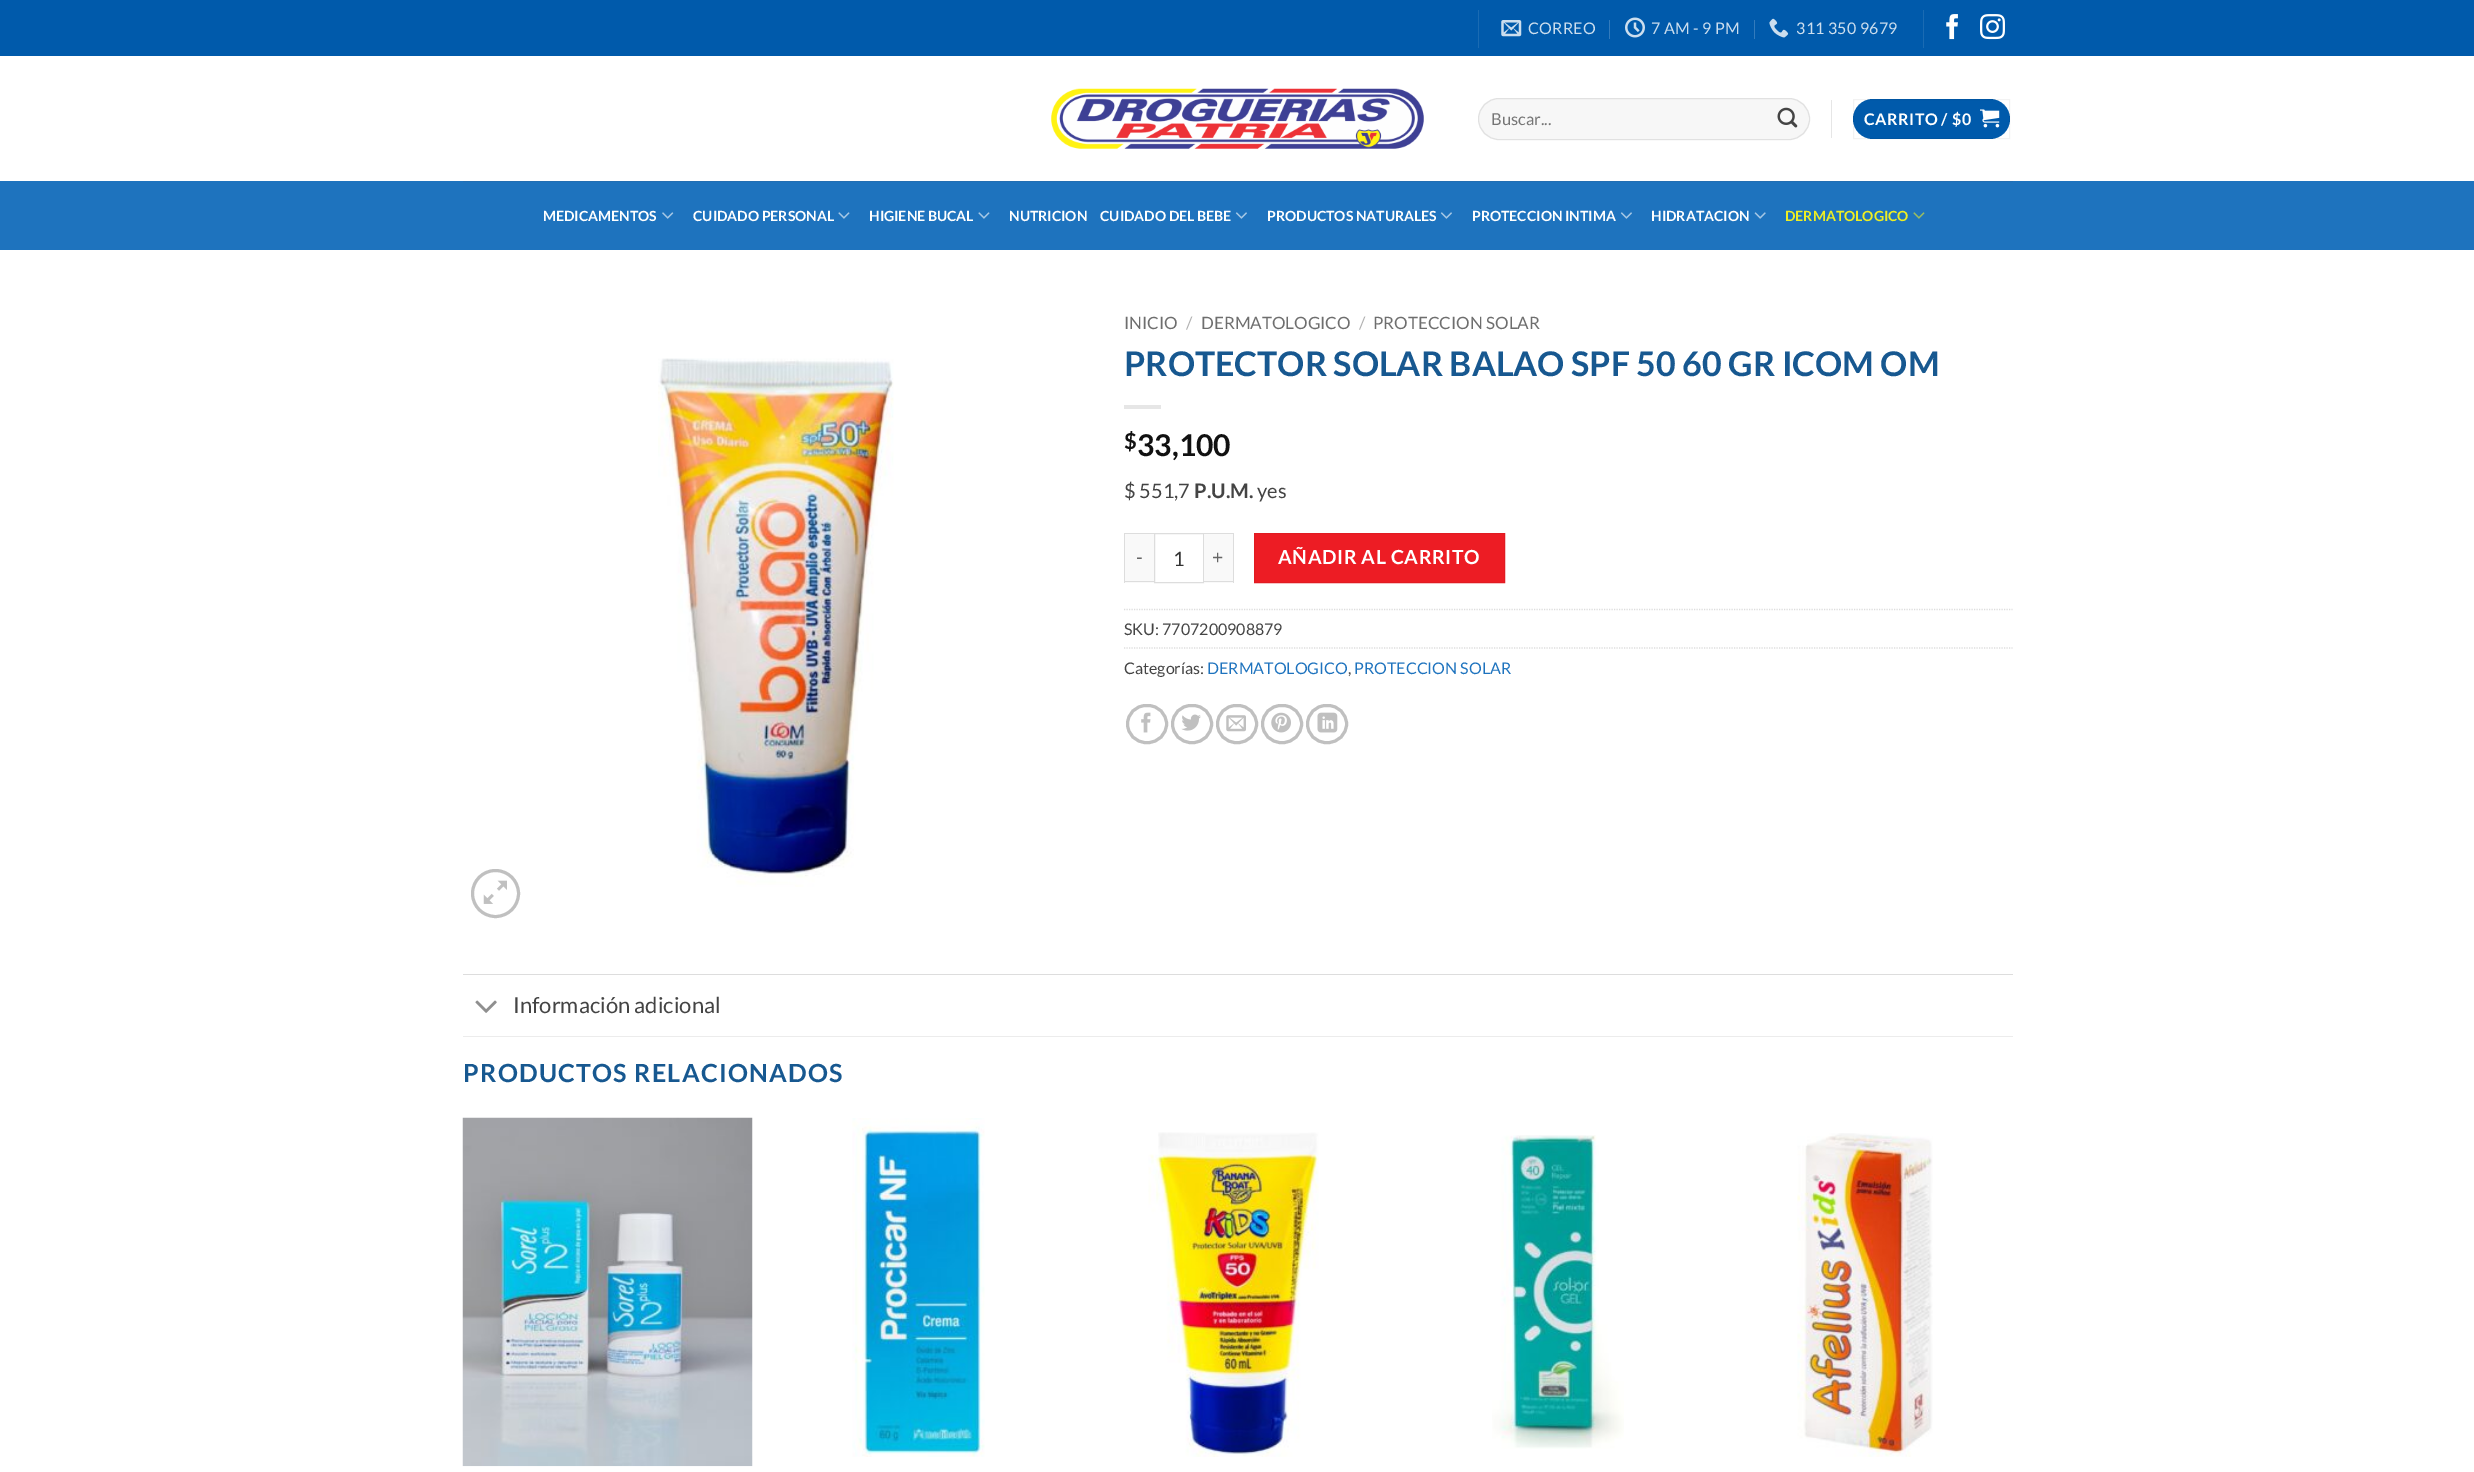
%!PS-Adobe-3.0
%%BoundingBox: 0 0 2474 1472
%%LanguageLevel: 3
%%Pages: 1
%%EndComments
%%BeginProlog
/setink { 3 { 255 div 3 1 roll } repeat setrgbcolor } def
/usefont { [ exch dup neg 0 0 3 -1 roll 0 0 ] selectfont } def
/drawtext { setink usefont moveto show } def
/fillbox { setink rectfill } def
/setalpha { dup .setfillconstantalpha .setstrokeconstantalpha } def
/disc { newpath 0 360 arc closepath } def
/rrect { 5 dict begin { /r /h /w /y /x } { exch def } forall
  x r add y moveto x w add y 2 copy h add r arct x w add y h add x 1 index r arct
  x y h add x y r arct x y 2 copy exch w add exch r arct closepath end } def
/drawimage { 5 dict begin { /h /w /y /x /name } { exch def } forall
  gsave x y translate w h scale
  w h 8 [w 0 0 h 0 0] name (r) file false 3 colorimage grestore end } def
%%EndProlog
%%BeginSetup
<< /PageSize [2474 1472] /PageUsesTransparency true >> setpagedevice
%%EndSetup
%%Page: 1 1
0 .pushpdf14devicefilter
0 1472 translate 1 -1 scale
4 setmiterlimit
0 0 2474 1472 255 255 255 fillbox
0 0 2474 56 0 90 171 fillbox
1478 10 1 38 26 107 179 fillbox
(assets/img1.rgb) 1501 20 21 17 drawimage
/Lato-Regular 16 usefont
204 222 238 setink
1528 34 moveto 0.25 0 (CORREO) ashow
1609 20 1 19 51 123 188 fillbox
(assets/img2.rgb) 1625 17 20 21 drawimage
204 222 238 setink
1651 34 moveto 0.25 0 (7 AM - 9 PM) ashow
1754 20 1 19 51 123 188 fillbox
(assets/img3.rgb) 1769 18 20 20 drawimage
204 222 238 setink
1796 34 moveto 0.25 0 (311 350 9679) ashow
1923 10 1 38 26 107 179 fillbox
(assets/img4.rgb) 1946 14 12 26 drawimage
(assets/img5.rgb) 1980 14 25 26 drawimage
(assets/img6.rgb) 1051 88 373 61 drawimage
247 247 247 setink
1478 98 332 42 21 rrect fill
0.09 setalpha
0 0 0 setink
1478.5 98.5 331 41 20.5 rrect stroke
1 setalpha
(Buscar...) 1491 125 /Lato-Regular 16.5 117 117 117 drawtext
(assets/img7.rgb) 1777 107 21 21 drawimage
1831 100 1 38 230 230 230 fillbox
0 90 171 setink
1853 99 157 40 20 rrect fill
0.05 setalpha
0 0 0 setink
1853.5 99.5 156 39 rectstroke
/Lato-Bold 16 usefont
1 setalpha
255 255 255 setink
1864 125 moveto 0.5 0 (CARRITO / $0) ashow
(assets/img8.rgb) 1980 109 20 19 drawimage
0 181 2474 69 30 115 190 fillbox
463 181 1550 1 34 110 178 fillbox
(MEDICAMENTOS) 543 221 /Lato-Bold 14 255 255 255 drawtext
(assets/img9.rgb) 662 212 12 7 drawimage
(CUIDADO PERSONAL) 693 221 /Lato-Bold 14 255 255 255 drawtext
(assets/img10.rgb) 838 212 12 7 drawimage
(HIGIENE BUCAL) 869 221 /Lato-Bold 14 255 255 255 drawtext
(assets/img10.rgb) 978 212 12 7 drawimage
(NUTRICION) 1009 221 /Lato-Bold 14 255 255 255 drawtext
(CUIDADO DEL BEBE) 1100 221 /Lato-Bold 14 255 255 255 drawtext
(assets/img11.rgb) 1235 212 12 7 drawimage
(PRODUCTOS NATURALES) 1267 221 /Lato-Bold 14 255 255 255 drawtext
(assets/img11.rgb) 1440 212 12 7 drawimage
(PROTECCION INTIMA) 1472 221 /Lato-Bold 14 255 255 255 drawtext
(assets/img11.rgb) 1620 212 12 7 drawimage
(HIDRATACION) 1651 221 /Lato-Bold 14 255 255 255 drawtext
(assets/img12.rgb) 1754 212 12 7 drawimage
(DERMATOLOGICO) 1785 221 /Lato-Bold 14 238 238 34 drawtext
(assets/img13.rgb) 1913 212 12 7 drawimage
(assets/img14.rgb) 658 358 236 529 drawimage
192 192 192 setink
3 setlinewidth
495.5 893.5 23 disc stroke
(assets/img15.rgb) 483 880 24 24 drawimage
(INICIO) 1124 329 /Lato-Regular 17 110 110 110 drawtext
(/) 1186 329 /Lato-Regular 17 178 178 178 drawtext
(DERMATOLOGICO) 1201 329 /Lato-Regular 17 110 110 110 drawtext
(/) 1359 329 /Lato-Regular 17 178 178 178 drawtext
(PROTECCION SOLAR) 1373 329 /Lato-Regular 17 110 110 110 drawtext
(PROTECTOR SOLAR BALAO SPF 50 60 GR ICOM OM) 1124 376 /Lato-Bold 34 23 88 144 drawtext
1124 405 37 4 230 230 230 fillbox
($) 1124 449 /Lato-Bold 22 17 17 17 drawtext
(33,100) 1137 456 /Lato-Bold 30 17 17 17 drawtext
($ 551,7) 1124 498 /Lato-Regular 20 68 68 68 drawtext
(P.U.M.) 1194 498 /Lato-Bold 20 68 68 68 drawtext
(yes) 1257 498 /Lato-Regular 20 68 68 68 drawtext
1125 534 29 49 249 249 249 fillbox
1124 533 30 1 221 221 221 fillbox
1124 581 30 1 221 221 221 fillbox
1124 533 1 50 221 221 221 fillbox
/Lato-Regular 19.4 usefont
102 102 102 setink
1136 564 moveto 0.6 0 (-) ashow
221 221 221 setink
1 setlinewidth
1154.5 533.5 49 49 rectstroke
(1) 1173 566 /Lato-Regular 20 51 51 51 drawtext
1204 534 29 49 249 249 249 fillbox
1204 533 30 1 221 221 221 fillbox
1233 533 1 50 221 221 221 fillbox
1204 581 30 1 221 221 221 fillbox
/Lato-Regular 19.4 usefont
102 102 102 setink
1212 564 moveto 0.6 0 (+) ashow
237 28 36 setink
1254.5 533.5 moveto 1504.5 533.5 lineto 1504.5 582.5 lineto 1254.5 582.5 lineto closepath gsave fill grestore
225 27 34 setink
stroke
/Lato-Bold 19.4 usefont
255 255 255 setink
1278 564 moveto 0.6 0 (AÑADIR AL CARRITO) ashow
221 221 221 setink
1.2 setlinewidth
[1.25 1.25] 0 setdash
1124 609.5 moveto 2012.5 609.5 lineto stroke
(SKU: 7707200908879) 1124 635 /Lato-Regular 16 68 68 68 drawtext
221 221 221 setink
1124 648 moveto 2012.5 648 lineto stroke
(Categorías:) 1124 674 /Lato-Regular 16 68 68 68 drawtext
(DERMATOLOGICO) 1207 674 /Lato-Regular 16 30 115 190 drawtext
(,) 1348 674 /Lato-Regular 16 68 68 68 drawtext
(PROTECCION SOLAR) 1354 674 /Lato-Regular 16 30 115 190 drawtext
192 192 192 setink
3 setlinewidth
[] 0 setdash
1127.5 705.5 39 37 18.5 rrect stroke
(assets/img16.rgb) 1141 712 10 21 drawimage
1172.5 705.5 39 37 18.5 rrect stroke
(assets/img17.rgb) 1181 714 20 17 drawimage
1217.5 705.5 39 37 18.5 rrect stroke
(assets/img18.rgb) 1226 715 20 17 drawimage
1262.5 705.5 39 37 18.5 rrect stroke
(assets/img19.rgb) 1271 712 20 21 drawimage
1307.5 705.5 39 37 18.5 rrect stroke
(assets/img20.rgb) 1317 712 21 21 drawimage
463 974 1550 1 221 221 221 fillbox
(assets/img21.rgb) 475 1000 22 13 drawimage
(Información adicional) 513 1013 /Lato-Regular 22 68 68 68 drawtext
463 1036 1550 1 236 236 236 fillbox
/Lato-Bold 25 usefont
23 88 144 setink
463 1082 moveto 1.25 0 (PRODUCTOS RELACIONADOS) ashow
(assets/img22.rgb) 462 1117 291 350 drawimage
(assets/img23.rgb) 852 1118 133 339 drawimage
(assets/img24.rgb) 1148 1132 171 325 drawimage
(assets/img25.rgb) 1492 1135 132 314 drawimage
(assets/img26.rgb) 1797 1133 136 324 drawimage
.poppdf14devicefilter showpage
%%EOF
